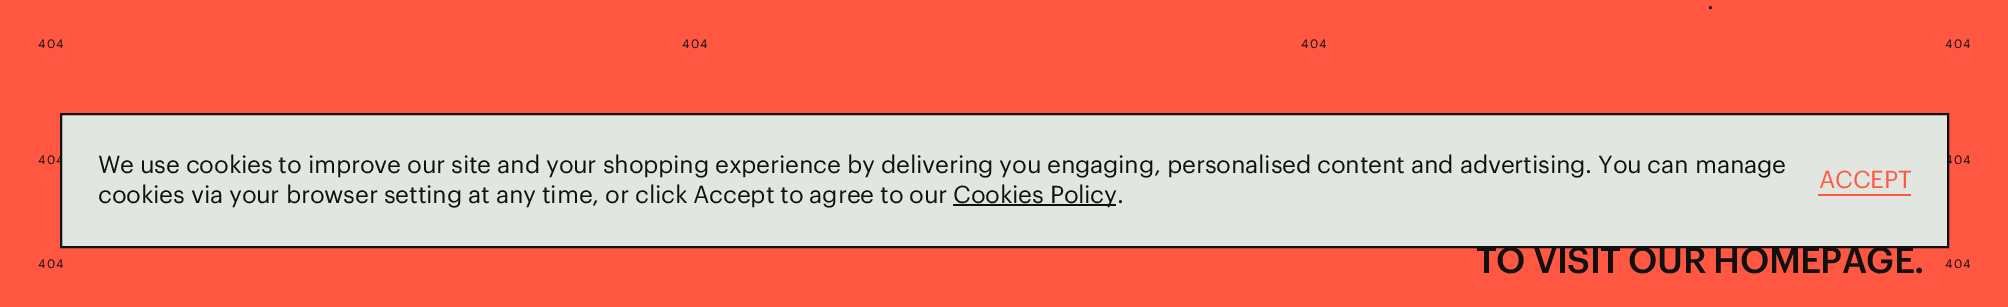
%!PS-Adobe-3.0
%%BoundingBox: 0 0 2008 307
%%LanguageLevel: 3
%%Pages: 1
%%EndComments
%%BeginProlog
/setink { 3 { 255 div 3 1 roll } repeat setrgbcolor } def
/usefont { [ exch dup neg 0 0 3 -1 roll 0 0 ] selectfont } def
/fillbox { setink rectfill } def
%%EndProlog
%%BeginSetup
<< /PageSize [2008 307] >> setpagedevice
%%EndSetup
%%Page: 1 1
0 307 translate 1 -1 scale
4 setmiterlimit
0 0 2008 307 255 87 65 fillbox
/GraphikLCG-Regular 24 usefont
16 16 16 setink
1707 9 moveto -0.24 0 (.) ashow
/GraphikLCG-Medium 36 usefont
1476 273 moveto -0.75 0 (TO VISIT OUR HOMEPAGE.) ashow
/GraphikLCG-Regular 12 usefont
38 48 moveto 1 0 (404) ashow
682 48 moveto 1 0 (404) ashow
1301 48 moveto 1 0 (404) ashow
1945 48 moveto 1 0 (404) ashow
38 164 moveto 1 0 (404) ashow
1945 164 moveto 1 0 (404) ashow
38 268 moveto 1 0 (404) ashow
1945 268 moveto 1 0 (404) ashow
226 230 225 setink
61 114 moveto 1948 114 lineto 1948 247 lineto 61 247 lineto closepath gsave fill grestore
16 16 16 setink
2 setlinewidth
stroke
/GraphikLCG-Regular 24 usefont
98 173 moveto -0.24 0 (We use cookies to improve our site and your shopping experience by delivering you engaging, personalised content and advertising. You can manage) ashow
98 203 moveto -0.24 0 (cookies via your browser setting at any time, or click Accept to agree to our) ashow
953 204 163 2 16 16 16 fillbox
953 203 moveto -0.24 0 (Cookies Policy.) ashow
255 87 65 setink
1819 188 moveto -0.24 0 (ACCEPT) ashow
1818 194 93 2 255 87 65 fillbox
showpage
%%EOF
